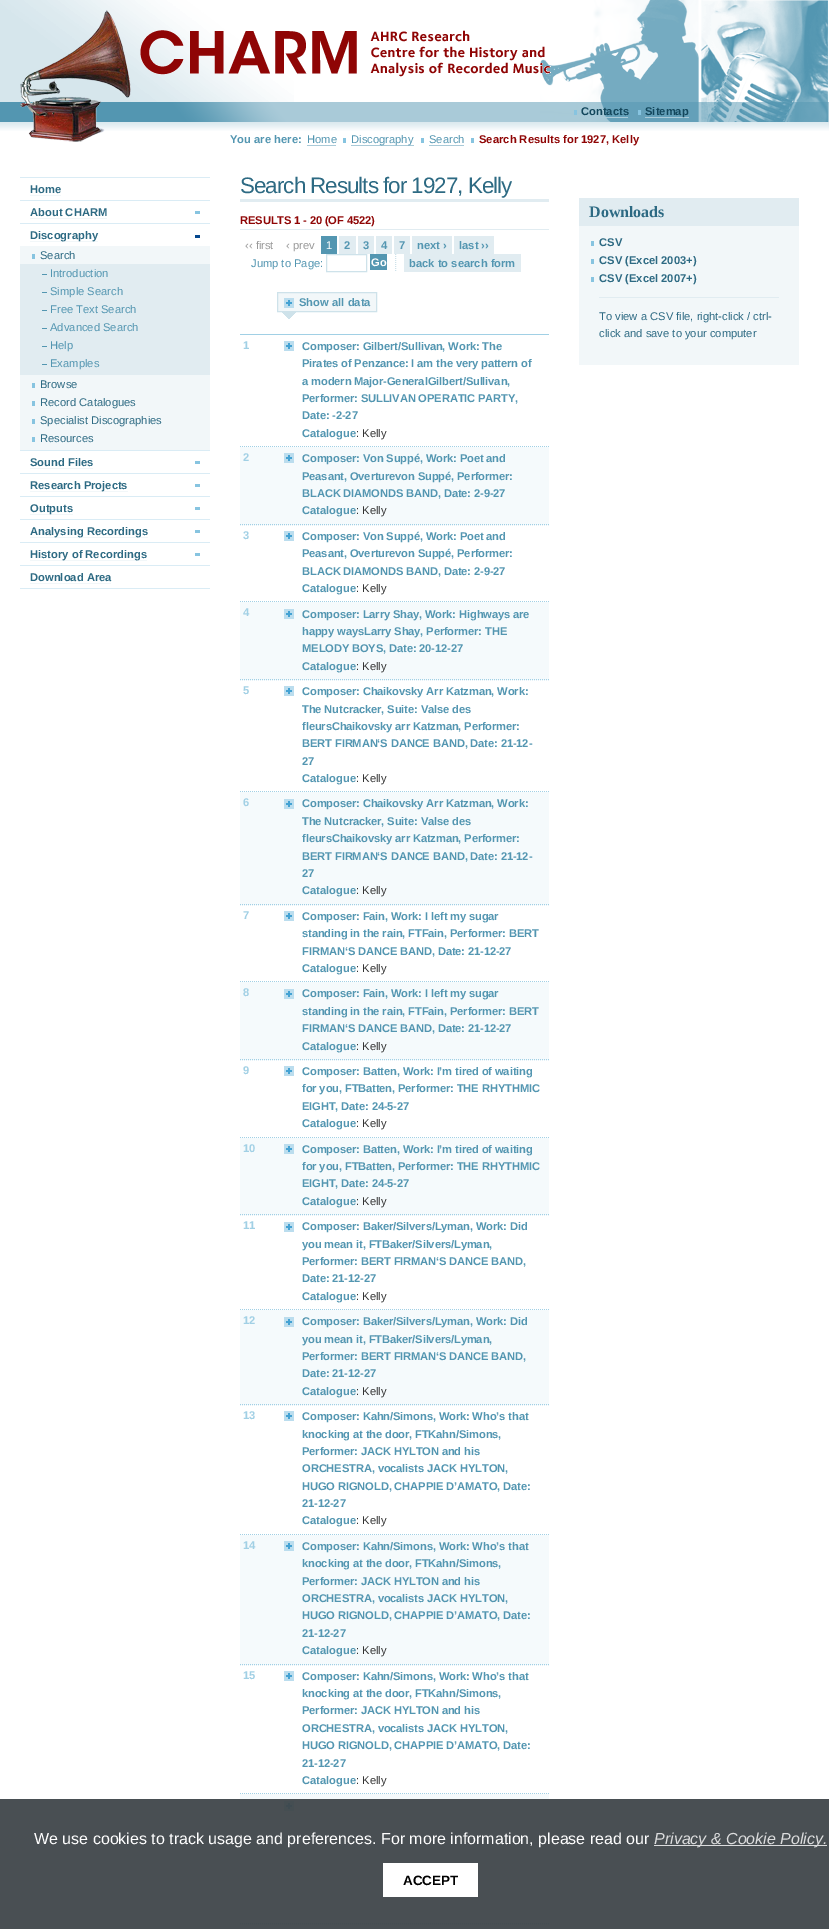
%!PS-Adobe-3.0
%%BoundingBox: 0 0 829 1929
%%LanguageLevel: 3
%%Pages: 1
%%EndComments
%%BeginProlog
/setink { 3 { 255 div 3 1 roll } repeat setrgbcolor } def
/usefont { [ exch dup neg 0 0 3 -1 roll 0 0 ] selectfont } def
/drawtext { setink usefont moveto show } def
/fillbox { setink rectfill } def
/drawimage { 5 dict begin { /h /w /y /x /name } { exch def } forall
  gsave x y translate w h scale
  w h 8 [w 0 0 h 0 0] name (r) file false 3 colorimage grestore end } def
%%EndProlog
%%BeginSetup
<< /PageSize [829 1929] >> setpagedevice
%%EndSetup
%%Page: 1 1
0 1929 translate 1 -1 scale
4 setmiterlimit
0 0 829 1929 255 255 255 fillbox
0 1799 829 130 73 79 83 fillbox
294 102 535 20 169 202 216 fillbox
(assets/img1.rgb) 0 0 294 122 drawimage
(assets/img2.rgb) 540 0 288 122 drawimage
(assets/img6.rgb) 0 122 829 9 drawimage
(assets/img3.rgb) 20 10 111 132 drawimage
(assets/img4.rgb) 140 30 217 45 drawimage
(assets/img5.rgb) 370 30 181 47 drawimage
574 110 3 5 135 196 224 fillbox
(Contacts) 581 115 /LiberationSans-Bold 11.2 19 71 92 drawtext
596 117 32 1 169 202 216 fillbox
638 110 3 5 135 196 224 fillbox
645 117 44 1 169 202 216 fillbox
(Sitemap) 645 115 /LiberationSans-Bold 11.2 19 71 92 drawtext
(You are here:) 230 143 /LiberationSans-Bold 11.2 83 150 177 drawtext
343 138 3 5 135 196 224 fillbox
(Home) 307 143 /LiberationSans-Regular 11.2 83 150 177 drawtext
307 145 29 1 169 202 216 fillbox
421 138 3 5 135 196 224 fillbox
351 145 63 1 169 202 216 fillbox
(Discography) 351 143 /LiberationSans-Regular 11.2 83 150 177 drawtext
471 138 3 5 135 196 224 fillbox
(Search) 429 143 /LiberationSans-Regular 11.2 83 150 177 drawtext
429 145 35 1 169 202 216 fillbox
(Search Results for 1927, Kelly) 479 143 /LiberationSans-Bold 11.2 143 5 5 drawtext
20 177 190 1 218 236 245 fillbox
20 200 190 1 218 236 245 fillbox
(Home) 30 193 /LiberationSans-Bold 11.2 45 106 131 drawtext
30 195 31 1 242 247 249 fillbox
20 223 190 1 218 236 245 fillbox
195 211 5 3 135 196 224 fillbox
(About CHARM) 30 216 /LiberationSans-Bold 11.2 45 106 131 drawtext
30 218 77 1 242 247 249 fillbox
195 235 5 3 5 72 142 fillbox
20 450 190 1 218 236 245 fillbox
30 241 68 1 242 247 249 fillbox
(Discography) 30 239 /LiberationSans-Bold 11.2 45 106 131 drawtext
20 246 190 204 242 247 249 fillbox
32 254 3 5 135 196 224 fillbox
(Search) 40 259 /LiberationSans-Regular 11.2 45 106 131 drawtext
20 264 190 111 225 236 241 fillbox
42 274 5 1 83 150 177 fillbox
(Introduction) 50 277 /LiberationSans-Regular 11.2 83 150 177 drawtext
42 292 5 1 83 150 177 fillbox
(Simple Search) 50 295 /LiberationSans-Regular 11.2 83 150 177 drawtext
42 310 5 1 83 150 177 fillbox
(Free Text Search) 50 313 /LiberationSans-Regular 11.2 83 150 177 drawtext
42 328 5 1 83 150 177 fillbox
(Advanced Search) 50 331 /LiberationSans-Regular 11.2 83 150 177 drawtext
42 346 5 1 83 150 177 fillbox
(Help) 50 349 /LiberationSans-Regular 11.2 83 150 177 drawtext
42 364 5 1 83 150 177 fillbox
(Examples) 50 367 /LiberationSans-Regular 11.2 83 150 177 drawtext
32 383 3 5 135 196 224 fillbox
(Browse) 40 388 /LiberationSans-Regular 11.2 45 106 131 drawtext
32 401 3 5 135 196 224 fillbox
(Record Catalogues) 40 406 /LiberationSans-Regular 11.2 45 106 131 drawtext
32 419 3 5 135 196 224 fillbox
(Specialist Discographies) 40 424 /LiberationSans-Regular 11.2 45 106 131 drawtext
32 437 3 5 135 196 224 fillbox
(Resources) 40 442 /LiberationSans-Regular 11.2 45 106 131 drawtext
20 473 190 1 218 236 245 fillbox
195 461 5 3 135 196 224 fillbox
(Sound Files) 30 466 /LiberationSans-Bold 11.2 45 106 131 drawtext
30 468 63 1 242 247 249 fillbox
20 496 190 1 218 236 245 fillbox
195 484 5 3 135 196 224 fillbox
30 491 98 1 242 247 249 fillbox
(Research Projects) 30 489 /LiberationSans-Bold 11.2 45 106 131 drawtext
20 519 190 1 218 236 245 fillbox
195 507 5 3 135 196 224 fillbox
30 514 43 1 242 247 249 fillbox
(Outputs) 30 512 /LiberationSans-Bold 11.2 45 106 131 drawtext
20 542 190 1 218 236 245 fillbox
195 530 5 3 135 196 224 fillbox
30 537 118 1 242 247 249 fillbox
(Analysing Recordings) 30 535 /LiberationSans-Bold 11.2 45 106 131 drawtext
20 565 190 1 218 236 245 fillbox
195 553 5 3 135 196 224 fillbox
30 560 117 1 242 247 249 fillbox
(History of Recordings) 30 558 /LiberationSans-Bold 11.2 45 106 131 drawtext
20 588 190 1 218 236 245 fillbox
(Download Area) 30 581 /LiberationSans-Bold 11.2 45 106 131 drawtext
30 583 81 1 242 247 249 fillbox
240 199 309 3 225 236 241 fillbox
/LiberationSans-Regular 22.4 usefont
45 106 131 setink
240 193 moveto -1 0 (Search Results for 1927, Kelly) ashow
240 229 309 1 225 236 241 fillbox
/LiberationSans-Bold 11.2 usefont
143 5 5 setink
240 224 moveto -0.15 0 (RESULTS 1 - 20 \(OF 4522\)) ashow
(‹‹ first) 245 249 /LiberationSans-Regular 11.2 153 153 153 drawtext
(‹ prev) 286 249 /LiberationSans-Regular 11.2 153 153 153 drawtext
321 236 16 18 83 150 177 fillbox
(1) 326 249 /LiberationSans-Regular 11.2 255 255 255 drawtext
339 236 17 18 225 236 241 fillbox
(2) 344 249 /LiberationSans-Bold 11.2 83 150 177 drawtext
358 236 16 18 225 236 241 fillbox
(3) 363 249 /LiberationSans-Bold 11.2 83 150 177 drawtext
376 236 16 18 225 236 241 fillbox
(4) 381 249 /LiberationSans-Bold 11.2 83 150 177 drawtext
394 236 16 18 225 236 241 fillbox
(7) 399 249 /LiberationSans-Bold 11.2 83 150 177 drawtext
412 236 40 18 225 236 241 fillbox
(next ›) 417 249 /LiberationSans-Bold 11.2 83 150 177 drawtext
454 236 40 18 225 236 241 fillbox
(last ››) 459 249 /LiberationSans-Bold 11.2 83 150 177 drawtext
(Jump to Page:) 251 267 /LiberationSans-Regular 11.2 83 150 177 drawtext
206 226 234 setink
326.5 254.5 40 17 rectstroke
370 254 17 16 83 150 177 fillbox
(Go) 371 266 /LiberationSans-Bold 11 255 255 255 drawtext
206 226 234 setink
[1 1] 0 setdash
395.5 254 moveto 395.5 272 lineto stroke
404 254 117 18 225 236 241 fillbox
(back to search form) 409 267 /LiberationSans-Bold 11.2 83 150 177 drawtext
(assets/img7.rgb) 282 312 14 7 drawimage
278 293 98 18 242 247 249 fillbox
(assets/img8.rgb) 284 298 10 10 drawimage
206 226 234 setink
[] 0 setdash
277.5 292.5 99 19 rectstroke
(Show all data) 299 306 /LiberationSans-Bold 11.2 83 150 177 drawtext
240 334 309 1 161 208 229 fillbox
[1 1] 0 setdash
240 446.5 moveto 549 446.5 lineto stroke
(1) 243 349 /LiberationSans-Bold 11.2 161 208 229 drawtext
(assets/img8.rgb) 284 341 10 10 drawimage
83 150 177 setink
302 350 moveto -0.15 0 (Composer: Gilbert/Sullivan, Work: The) ashow
302 367 moveto -0.15 0 (Pirates of Penzance: I am the very pattern of) ashow
302 385 moveto -0.15 0 (a modern Major-GeneralGilbert/Sullivan,) ashow
302 402 moveto -0.15 0 (Performer: SULLIVAN OPERATIC PARTY,) ashow
302 419 moveto -0.15 0 (Date: -2-27) ashow
(Catalogue) 302 437 /LiberationSans-Bold 11.2 83 150 177 drawtext
(: Kelly) 356 437 /LiberationSans-Regular 11.2 51 51 51 drawtext
240 447 309 78 245 250 252 fillbox
161 208 229 setink
240 524.5 moveto 549 524.5 lineto stroke
(2) 243 461 /LiberationSans-Bold 11.2 161 208 229 drawtext
(assets/img8.rgb) 284 453 10 10 drawimage
83 150 177 setink
302 462 moveto -0.15 0 (Composer: Von Suppé, Work: Poet and) ashow
302 480 moveto -0.15 0 (Peasant, Overturevon Suppé, Performer:) ashow
302 497 moveto -0.15 0 (BLACK DIAMONDS BAND, Date: 2-9-27) ashow
(Catalogue) 302 514 /LiberationSans-Bold 11.2 83 150 177 drawtext
(: Kelly) 356 514 /LiberationSans-Regular 11.2 51 51 51 drawtext
161 208 229 setink
240 601.5 moveto 549 601.5 lineto stroke
(3) 243 539 /LiberationSans-Bold 11.2 161 208 229 drawtext
(assets/img8.rgb) 284 531 10 10 drawimage
83 150 177 setink
302 540 moveto -0.15 0 (Composer: Von Suppé, Work: Poet and) ashow
302 557 moveto -0.15 0 (Peasant, Overturevon Suppé, Performer:) ashow
302 575 moveto -0.15 0 (BLACK DIAMONDS BAND, Date: 2-9-27) ashow
(Catalogue) 302 592 /LiberationSans-Bold 11.2 83 150 177 drawtext
(: Kelly) 356 592 /LiberationSans-Regular 11.2 51 51 51 drawtext
240 602 309 78 245 250 252 fillbox
161 208 229 setink
240 679.5 moveto 549 679.5 lineto stroke
(4) 243 616 /LiberationSans-Bold 11.2 161 208 229 drawtext
(assets/img8.rgb) 284 609 10 10 drawimage
83 150 177 setink
302 618 moveto -0.15 0 (Composer: Larry Shay, Work: Highways are) ashow
302 635 moveto -0.15 0 (happy waysLarry Shay, Performer: THE) ashow
302 652 moveto -0.15 0 (MELODY BOYS, Date: 20-12-27) ashow
(Catalogue) 302 670 /LiberationSans-Bold 11.2 83 150 177 drawtext
(: Kelly) 356 670 /LiberationSans-Regular 11.2 51 51 51 drawtext
161 208 229 setink
240 791.5 moveto 549 791.5 lineto stroke
(5) 243 694 /LiberationSans-Bold 11.2 161 208 229 drawtext
(assets/img8.rgb) 284 686 10 10 drawimage
83 150 177 setink
302 695 moveto -0.15 0 (Composer: Chaikovsky Arr Katzman, Work:) ashow
302 713 moveto -0.15 0 (The Nutcracker, Suite: Valse des) ashow
302 730 moveto -0.15 0 (fleursChaikovsky arr Katzman, Performer:) ashow
302 747 moveto -0.15 0 (BERT FIRMAN‘S DANCE BAND, Date: 21-12-) ashow
302 765 moveto -0.15 0 (27) ashow
(Catalogue) 302 782 /LiberationSans-Bold 11.2 83 150 177 drawtext
(: Kelly) 356 782 /LiberationSans-Regular 11.2 51 51 51 drawtext
240 792 309 113 245 250 252 fillbox
161 208 229 setink
240 904.5 moveto 549 904.5 lineto stroke
(6) 243 806 /LiberationSans-Bold 11.2 161 208 229 drawtext
(assets/img8.rgb) 284 799 10 10 drawimage
83 150 177 setink
302 807 moveto -0.15 0 (Composer: Chaikovsky Arr Katzman, Work:) ashow
302 825 moveto -0.15 0 (The Nutcracker, Suite: Valse des) ashow
302 842 moveto -0.15 0 (fleursChaikovsky arr Katzman, Performer:) ashow
302 860 moveto -0.15 0 (BERT FIRMAN‘S DANCE BAND, Date: 21-12-) ashow
302 877 moveto -0.15 0 (27) ashow
(Catalogue) 302 894 /LiberationSans-Bold 11.2 83 150 177 drawtext
(: Kelly) 356 894 /LiberationSans-Regular 11.2 51 51 51 drawtext
161 208 229 setink
240 981.5 moveto 549 981.5 lineto stroke
(7) 243 919 /LiberationSans-Bold 11.2 161 208 229 drawtext
(assets/img8.rgb) 284 911 10 10 drawimage
83 150 177 setink
302 920 moveto -0.15 0 (Composer: Fain, Work: I left my sugar) ashow
302 937 moveto -0.15 0 (standing in the rain, FTFain, Performer: BERT) ashow
302 955 moveto -0.15 0 (FIRMAN‘S DANCE BAND, Date: 21-12-27) ashow
(Catalogue) 302 972 /LiberationSans-Bold 11.2 83 150 177 drawtext
(: Kelly) 356 972 /LiberationSans-Regular 11.2 51 51 51 drawtext
240 982 309 78 245 250 252 fillbox
161 208 229 setink
240 1059.5 moveto 549 1059.5 lineto stroke
(8) 243 996 /LiberationSans-Bold 11.2 161 208 229 drawtext
(assets/img8.rgb) 284 989 10 10 drawimage
83 150 177 setink
302 997 moveto -0.15 0 (Composer: Fain, Work: I left my sugar) ashow
302 1015 moveto -0.15 0 (standing in the rain, FTFain, Performer: BERT) ashow
302 1032 moveto -0.15 0 (FIRMAN‘S DANCE BAND, Date: 21-12-27) ashow
(Catalogue) 302 1050 /LiberationSans-Bold 11.2 83 150 177 drawtext
(: Kelly) 356 1050 /LiberationSans-Regular 11.2 51 51 51 drawtext
161 208 229 setink
240 1137.5 moveto 549 1137.5 lineto stroke
(9) 243 1074 /LiberationSans-Bold 11.2 161 208 229 drawtext
(assets/img8.rgb) 284 1066 10 10 drawimage
83 150 177 setink
302 1075 moveto -0.15 0 (Composer: Batten, Work: I’m tired of waiting) ashow
302 1092 moveto -0.15 0 (for you, FTBatten, Performer: THE RHYTHMIC) ashow
302 1110 moveto -0.15 0 (EIGHT, Date: 24-5-27) ashow
(Catalogue) 302 1127 /LiberationSans-Bold 11.2 83 150 177 drawtext
(: Kelly) 356 1127 /LiberationSans-Regular 11.2 51 51 51 drawtext
240 1138 309 77 245 250 252 fillbox
161 208 229 setink
240 1214.5 moveto 549 1214.5 lineto stroke
(10) 243 1152 /LiberationSans-Bold 11.2 161 208 229 drawtext
(assets/img8.rgb) 284 1144 10 10 drawimage
83 150 177 setink
302 1153 moveto -0.15 0 (Composer: Batten, Work: I’m tired of waiting) ashow
302 1170 moveto -0.15 0 (for you, FTBatten, Performer: THE RHYTHMIC) ashow
302 1187 moveto -0.15 0 (EIGHT, Date: 24-5-27) ashow
(Catalogue) 302 1205 /LiberationSans-Bold 11.2 83 150 177 drawtext
(: Kelly) 356 1205 /LiberationSans-Regular 11.2 51 51 51 drawtext
161 208 229 setink
240 1309.5 moveto 549 1309.5 lineto stroke
(11) 243 1229 /LiberationSans-Bold 11.2 161 208 229 drawtext
(assets/img8.rgb) 284 1222 10 10 drawimage
83 150 177 setink
302 1230 moveto -0.15 0 (Composer: Baker/Silvers/Lyman, Work: Did) ashow
302 1248 moveto -0.15 0 (you mean it, FTBaker/Silvers/Lyman,) ashow
302 1265 moveto -0.15 0 (Performer: BERT FIRMAN‘S DANCE BAND,) ashow
302 1282 moveto -0.15 0 (Date: 21-12-27) ashow
(Catalogue) 302 1300 /LiberationSans-Bold 11.2 83 150 177 drawtext
(: Kelly) 356 1300 /LiberationSans-Regular 11.2 51 51 51 drawtext
240 1310 309 95 245 250 252 fillbox
161 208 229 setink
240 1404.5 moveto 549 1404.5 lineto stroke
(12) 243 1324 /LiberationSans-Bold 11.2 161 208 229 drawtext
(assets/img8.rgb) 284 1317 10 10 drawimage
83 150 177 setink
302 1325 moveto -0.15 0 (Composer: Baker/Silvers/Lyman, Work: Did) ashow
302 1343 moveto -0.15 0 (you mean it, FTBaker/Silvers/Lyman,) ashow
302 1360 moveto -0.15 0 (Performer: BERT FIRMAN‘S DANCE BAND,) ashow
302 1377 moveto -0.15 0 (Date: 21-12-27) ashow
(Catalogue) 302 1395 /LiberationSans-Bold 11.2 83 150 177 drawtext
(: Kelly) 356 1395 /LiberationSans-Regular 11.2 51 51 51 drawtext
161 208 229 setink
240 1534.5 moveto 549 1534.5 lineto stroke
(13) 243 1419 /LiberationSans-Bold 11.2 161 208 229 drawtext
(assets/img8.rgb) 284 1411 10 10 drawimage
83 150 177 setink
302 1420 moveto -0.15 0 (Composer: Kahn/Simons, Work: Who’s that) ashow
302 1438 moveto -0.15 0 (knocking at the door, FTKahn/Simons,) ashow
302 1455 moveto -0.15 0 (Performer: JACK HYLTON and his) ashow
302 1472 moveto -0.15 0 (ORCHESTRA, vocalists JACK HYLTON,) ashow
302 1490 moveto -0.15 0 (HUGO RIGNOLD, CHAPPIE D’AMATO, Date:) ashow
302 1507 moveto -0.15 0 (21-12-27) ashow
(Catalogue) 302 1524 /LiberationSans-Bold 11.2 83 150 177 drawtext
(: Kelly) 356 1524 /LiberationSans-Regular 11.2 51 51 51 drawtext
240 1535 309 130 245 250 252 fillbox
161 208 229 setink
240 1664.5 moveto 549 1664.5 lineto stroke
(14) 243 1549 /LiberationSans-Bold 11.2 161 208 229 drawtext
(assets/img8.rgb) 284 1541 10 10 drawimage
83 150 177 setink
302 1550 moveto -0.15 0 (Composer: Kahn/Simons, Work: Who’s that) ashow
302 1567 moveto -0.15 0 (knocking at the door, FTKahn/Simons,) ashow
302 1585 moveto -0.15 0 (Performer: JACK HYLTON and his) ashow
302 1602 moveto -0.15 0 (ORCHESTRA, vocalists JACK HYLTON,) ashow
302 1619 moveto -0.15 0 (HUGO RIGNOLD, CHAPPIE D’AMATO, Date:) ashow
302 1637 moveto -0.15 0 (21-12-27) ashow
(Catalogue) 302 1654 /LiberationSans-Bold 11.2 83 150 177 drawtext
(: Kelly) 356 1654 /LiberationSans-Regular 11.2 51 51 51 drawtext
161 208 229 setink
240 1793.5 moveto 549 1793.5 lineto stroke
(15) 243 1679 /LiberationSans-Bold 11.2 161 208 229 drawtext
(assets/img8.rgb) 284 1671 10 10 drawimage
83 150 177 setink
302 1680 moveto -0.15 0 (Composer: Kahn/Simons, Work: Who’s that) ashow
302 1697 moveto -0.15 0 (knocking at the door, FTKahn/Simons,) ashow
302 1714 moveto -0.15 0 (Performer: JACK HYLTON and his) ashow
302 1732 moveto -0.15 0 (ORCHESTRA, vocalists JACK HYLTON,) ashow
302 1749 moveto -0.15 0 (HUGO RIGNOLD, CHAPPIE D’AMATO, Date:) ashow
302 1767 moveto -0.15 0 (21-12-27) ashow
(Catalogue) 302 1784 /LiberationSans-Bold 11.2 83 150 177 drawtext
(: Kelly) 356 1784 /LiberationSans-Regular 11.2 51 51 51 drawtext
240 1794 309 5 245 250 252 fillbox
68 77 82 setink
240 1923.5 moveto 549 1923.5 lineto stroke
(assets/img9.rgb) 284 1801 10 10 drawimage
579 226 220 139 242 247 249 fillbox
579 198 220 28 225 236 241 fillbox
(Downloads) 589 217 /LiberationSerif-Bold 16 45 106 131 drawtext
591 241 3 5 135 196 224 fillbox
(CSV) 599 246 /LiberationSans-Bold 11.2 45 106 131 drawtext
591 259 3 5 135 196 224 fillbox
(CSV \(Excel 2003+\)) 599 264 /LiberationSans-Bold 11.2 45 106 131 drawtext
591 277 3 5 135 196 224 fillbox
(CSV \(Excel 2007+\)) 599 282 /LiberationSans-Bold 11.2 45 106 131 drawtext
599 297 180 1 225 236 241 fillbox
(To view a CSV file, right-click / ctrl-) 599 320 /LiberationSans-Regular 11.2 45 106 131 drawtext
(click and save to your computer) 599 337 /LiberationSans-Regular 11.2 45 106 131 drawtext
(We use cookies to track usage and preferences. For more information, please read our) 34 1844 /LiberationSans-Regular 16 255 255 255 drawtext
654 1845 173 1 219 220 221 fillbox
(Privacy & Cookie Policy.) 654 1844 /LiberationSans-Italic 16 219 220 221 drawtext
383 1863 95 34 255 255 255 fillbox
(ACCEPT) 403 1885 /LiberationSans-Bold 13.5 0 0 0 drawtext
showpage
%%EOF
